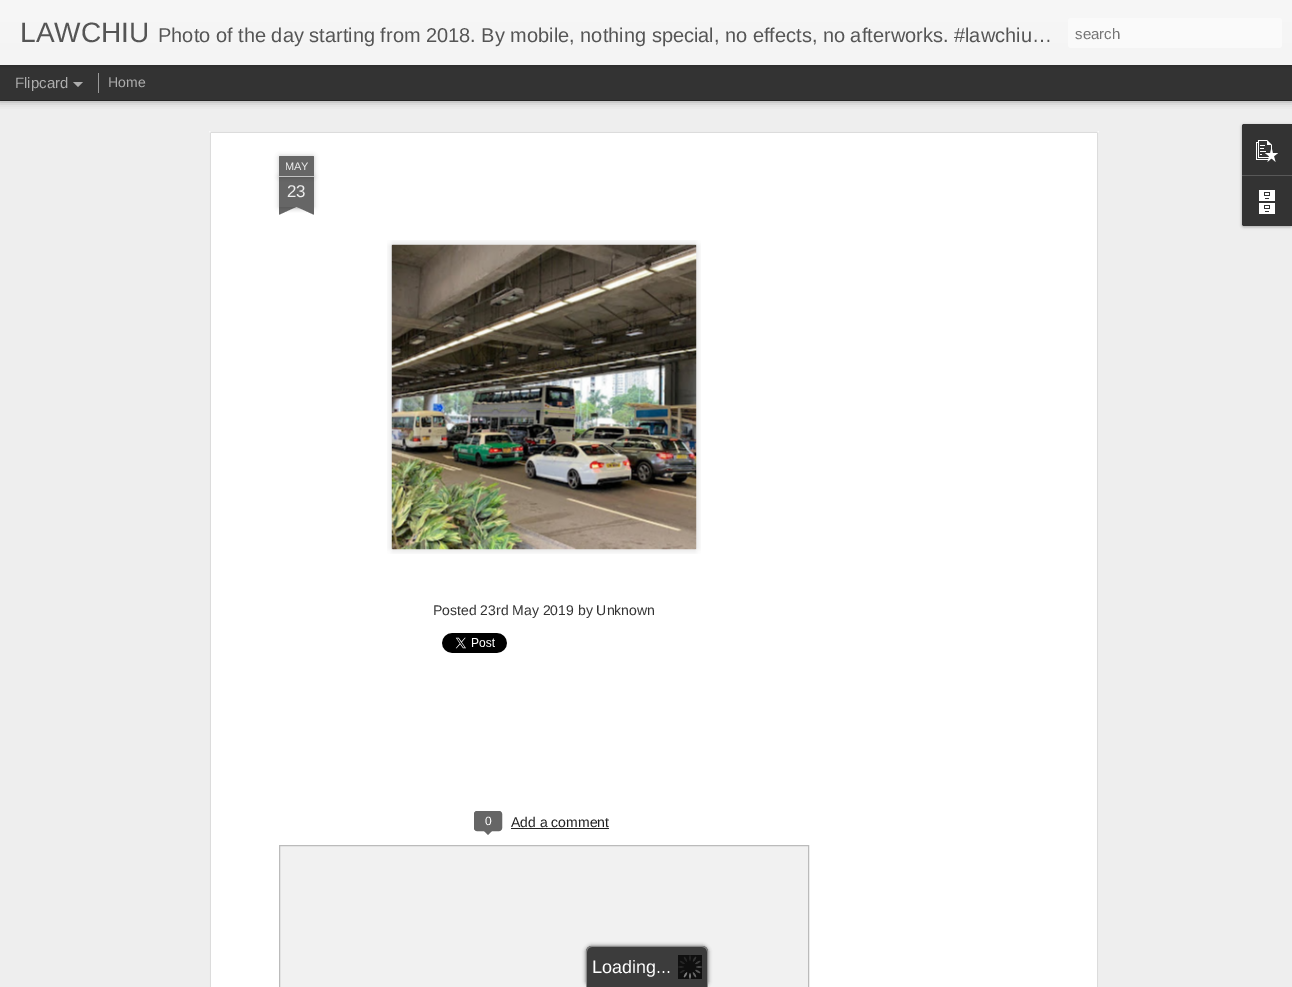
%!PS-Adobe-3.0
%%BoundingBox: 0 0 1292 987
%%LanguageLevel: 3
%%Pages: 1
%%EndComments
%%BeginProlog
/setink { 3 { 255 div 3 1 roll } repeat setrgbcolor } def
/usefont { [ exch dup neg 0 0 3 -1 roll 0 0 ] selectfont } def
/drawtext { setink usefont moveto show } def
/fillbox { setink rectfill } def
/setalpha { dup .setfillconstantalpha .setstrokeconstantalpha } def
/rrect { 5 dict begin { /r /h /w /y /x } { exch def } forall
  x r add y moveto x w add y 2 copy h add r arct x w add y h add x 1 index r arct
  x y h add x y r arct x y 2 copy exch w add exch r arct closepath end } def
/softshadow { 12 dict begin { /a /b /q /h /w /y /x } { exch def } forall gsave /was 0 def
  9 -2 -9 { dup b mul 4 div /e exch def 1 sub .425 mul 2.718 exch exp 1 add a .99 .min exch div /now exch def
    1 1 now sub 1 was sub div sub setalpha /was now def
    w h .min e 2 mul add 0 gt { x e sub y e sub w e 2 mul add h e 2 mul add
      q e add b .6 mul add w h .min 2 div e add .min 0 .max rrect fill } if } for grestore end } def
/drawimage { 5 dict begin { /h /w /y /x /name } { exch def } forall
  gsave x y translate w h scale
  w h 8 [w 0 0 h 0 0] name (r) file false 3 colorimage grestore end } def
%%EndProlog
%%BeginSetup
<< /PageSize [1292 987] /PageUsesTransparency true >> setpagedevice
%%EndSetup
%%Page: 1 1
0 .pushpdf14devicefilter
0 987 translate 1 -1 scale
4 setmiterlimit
0 0 1292 987 51 51 51 fillbox
0 101 1292 886 238 238 238 fillbox
0 0 0 setink
0 65 1292 35 0 4 0.5 softshadow
0 65 1292 35 51 51 51 fillbox
98 73 1 20 153 153 153 fillbox
0 0 0 setink
0 0 1292 65 0 2.5 0.3 softshadow
gsave 0 0 moveto 1292 0 lineto 1292 65 lineto 0 65 lineto closepath clip newpath
<< /ShadingType 2 /ColorSpace /DeviceRGB /Coords [0 0 0 65] /Extend [true true] /Function << /FunctionType 2 /Domain [0 1] /C0 [0.969 0.969 0.969] /C1 [0.957 0.957 0.957] /N 1 >> >> shfill grestore
(LAWCHIU) 20 42 /LiberationSans-Regular 28 85 85 85 drawtext
(Photo of the day starting from 2018. By mobile, nothing special, no effects, no afterworks. #lawchiu…) 158 42 /LiberationSans-Regular 20 85 85 85 drawtext
250 250 250 setink
1068 18 214 30 3 rrect fill
(search) 1075 39 /LiberationSans-Regular 15 117 117 117 drawtext
(Flipcard) 15 88 /LiberationSans-Regular 15 173 173 173 drawtext
73 82 moveto 83 82 lineto 78 87 lineto closepath fill
(Home) 108 87 /LiberationSans-Regular 14 173 173 173 drawtext
209 131 890 856 255 255 255 fillbox
(assets/img1.rgb) 209 131 890 856 drawimage
0 0 0 setink
279 177 35 30 0 2.5 0.2 softshadow
279 177 35 30 102 102 102 fillbox
0 0 0 setink
279 156 35 21 1 2.5 0.2 softshadow
102 102 102 setink
280 156 moveto 313 156 lineto 313.5 156 314 156.5 314 157 curveto 314 177 lineto 279 177 lineto 279 157 lineto 279 156.5 279.5 156 280 156 curveto closepath fill
279 176 35 1 194 194 194 fillbox
(MAY) 285 170 /LiberationSans-Regular 11 238 238 238 drawtext
(23) 287 197 /LiberationSans-Regular 17 238 238 238 drawtext
gsave
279 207 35 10 rectclip
0 0 0 setink
270 197 50 10 0 2.5 0.2 softshadow
grestore
gsave
279 207 35 10 rectclip
102 102 102 setink
270 208 moveto 316 187 lineto 320 196 lineto 274 217 lineto closepath fill
grestore
gsave
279 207 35 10 rectclip
0 0 0 setink
273 197 50 10 0 2.5 0.2 softshadow
grestore
gsave
279 207 35 10 rectclip
102 102 102 setink
277 187 moveto 323 208 lineto 319 217 lineto 273 196 lineto closepath fill
grestore
(assets/img2.rgb) 387 240 314 314 drawimage
(assets/img3.rgb) 391 244 306 306 drawimage
(Posted 23rd May 2019 by Unknown) 433 615 /LiberationSans-Regular 14 51 51 51 drawtext
(assets/img4.rgb) 442 633 65 20 drawimage
102 102 102 setink
474.5 811.5 27 19 2.5 rrect gsave fill grestore
stroke
(0) 485 825 /LiberationSans-Regular 12 255 255 255 drawtext
102 102 102 setink
483 830 moveto 493 830 lineto 488 835 lineto closepath fill
(Add a comment) 511 827 /LiberationSans-Regular 14 34 34 34 drawtext
511 828 98 1 34 34 34 fillbox
241 241 241 setink
279.5 845.5 moveto 808.5 845.5 lineto 808.5 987.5 lineto 279.5 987.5 lineto closepath gsave fill grestore
187 187 187 setink
stroke
0 0 0 setink
1242 125 50 102 2 1.5 0.3 softshadow
51 51 51 setink
1244 124 moveto 1292 124 lineto 1292 175 lineto 1242 175 lineto 1242 126 lineto 1242 125 1243 124 1244 124 curveto closepath fill
(assets/img5.rgb) 1256 140 22 22 drawimage
1242 175 moveto 1292 175 lineto 1292 226 lineto 1244 226 lineto 1243 226 1242 225 1242 224 curveto closepath fill
1242 175 50 1 88 88 88 fillbox
(assets/img6.rgb) 1259 190 16 24 drawimage
99 99 99 setink
586 946 122 41 6 2 1 softshadow
60 60 60 setink
592 946 moveto 702 946 lineto 705.5 946 708 948.5 708 952 curveto 708 987 lineto 586 987 lineto 586 952 lineto 586 948.5 588.5 946 592 946 curveto closepath fill
137 137 137 setink
592 946 moveto 702 946 lineto 705 946 708 949 708 952 curveto 708 987 lineto 586 987 lineto 586 952 lineto 586 949 589 946 592 946 curveto closepath 592 947 moveto 702 947 lineto 705 947 707 949 707 952 curveto 707 987 lineto 587 987 lineto 587 952 lineto 587 949 589 947 592 947 curveto closepath eofill
(assets/img7.rgb) 678 955 24 24 drawimage
(Loading...) 592 973 /LiberationSans-Regular 18 255 255 255 drawtext
.poppdf14devicefilter showpage
%%EOF
